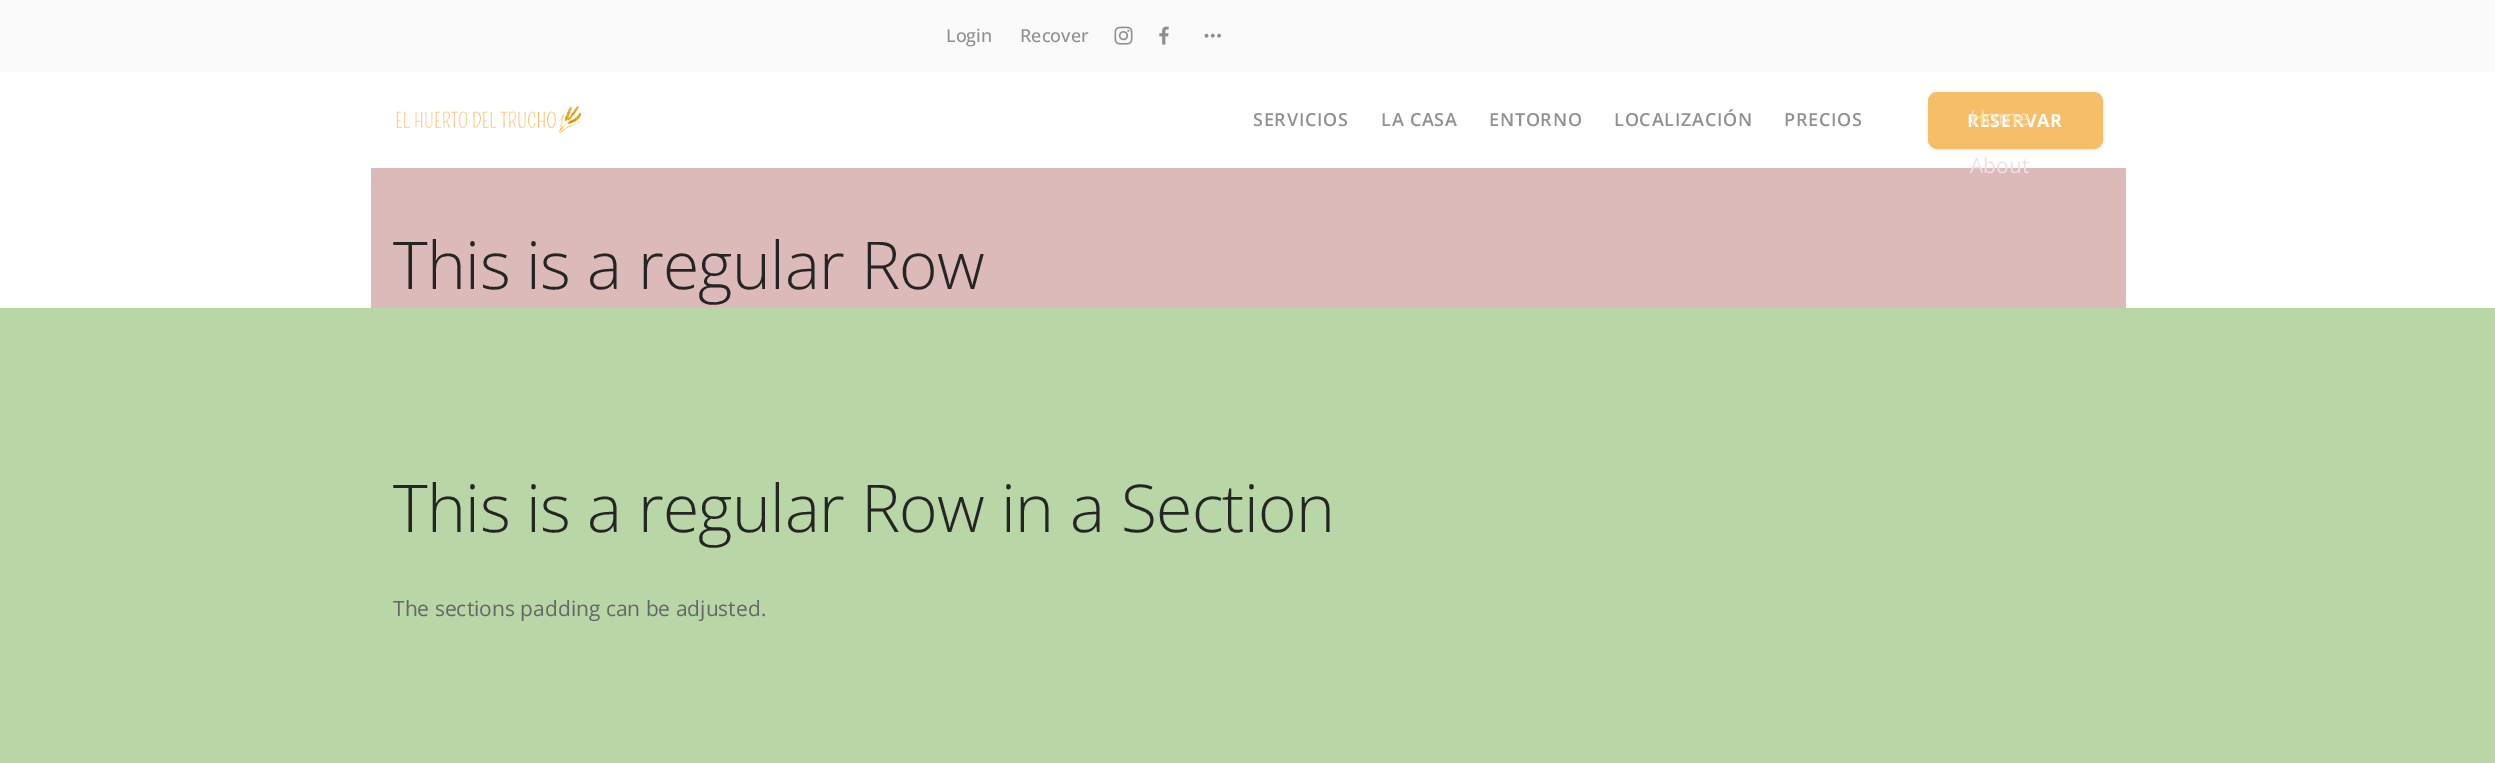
%!PS-Adobe-3.0
%%BoundingBox: 0 0 2495 763
%%LanguageLevel: 3
%%Pages: 1
%%EndComments
%%BeginProlog
/setink { 3 { 255 div 3 1 roll } repeat setrgbcolor } def
/usefont { [ exch dup neg 0 0 3 -1 roll 0 0 ] selectfont } def
/drawtext { setink usefont moveto show } def
/fillbox { setink rectfill } def
/rrect { 5 dict begin { /r /h /w /y /x } { exch def } forall
  x r add y moveto x w add y 2 copy h add r arct x w add y h add x 1 index r arct
  x y h add x y r arct x y 2 copy exch w add exch r arct closepath end } def
/drawimage { 5 dict begin { /h /w /y /x /name } { exch def } forall
  gsave x y translate w h scale
  w h 8 [w 0 0 h 0 0] name (r) file false 3 colorimage grestore end } def
%%EndProlog
%%BeginSetup
<< /PageSize [2495 763] >> setpagedevice
%%EndSetup
%%Page: 1 1
0 763 translate 1 -1 scale
4 setmiterlimit
0 0 2495 763 255 255 255 fillbox
0 0 2495 72 250 250 250 fillbox
(Login) 946 42 /OpenSans-Medium 18 144 144 144 drawtext
(Recover) 1020 42 /OpenSans-Medium 18 144 144 144 drawtext
(assets/img1.rgb) 1114 26 19 19 drawimage
(assets/img2.rgb) 1159 26 10 19 drawimage
(assets/img3.rgb) 1204 33 17 5 drawimage
(assets/img4.rgb) 396 105 186 29 drawimage
/OpenSans-SemiBold 18 usefont
1253 126 moveto 0.75 0 (SERVICIOS) ashow
1381 126 moveto 0.75 0 (LA CASA) ashow
1489 126 moveto 0.75 0 (ENTORNO) ashow
1614 126 moveto 0.75 0 (LOCALIZACIÓN) ashow
1784 126 moveto 0.75 0 (PRECIOS) ashow
247 190 104 setink
1929 93 173 55 8 rrect gsave fill grestore
2 setlinewidth
stroke
/OpenSans-Bold 18 usefont
255 255 255 setink
1967 127 moveto 0.75 0 (RESERVAR) ashow
(Home) 1970 125 /OpenSans-Regular 21 250 217 167 drawtext
371 168 1755 140 221 186 186 fillbox
(About) 1970 173 /OpenSans-Regular 21 241 226 226 drawtext
/OpenSans-Light 66 usefont
37 37 37 setink
393 289 moveto -0.65 0 (This is a regular Row) ashow
0 308 2495 455 185 214 167 fillbox
37 37 37 setink
393 532 moveto -0.65 0 (This is a regular Row in a Section) ashow
(The sections padding can be adjusted.) 393 616 /OpenSans-Regular 21 102 102 102 drawtext
showpage
%%EOF
